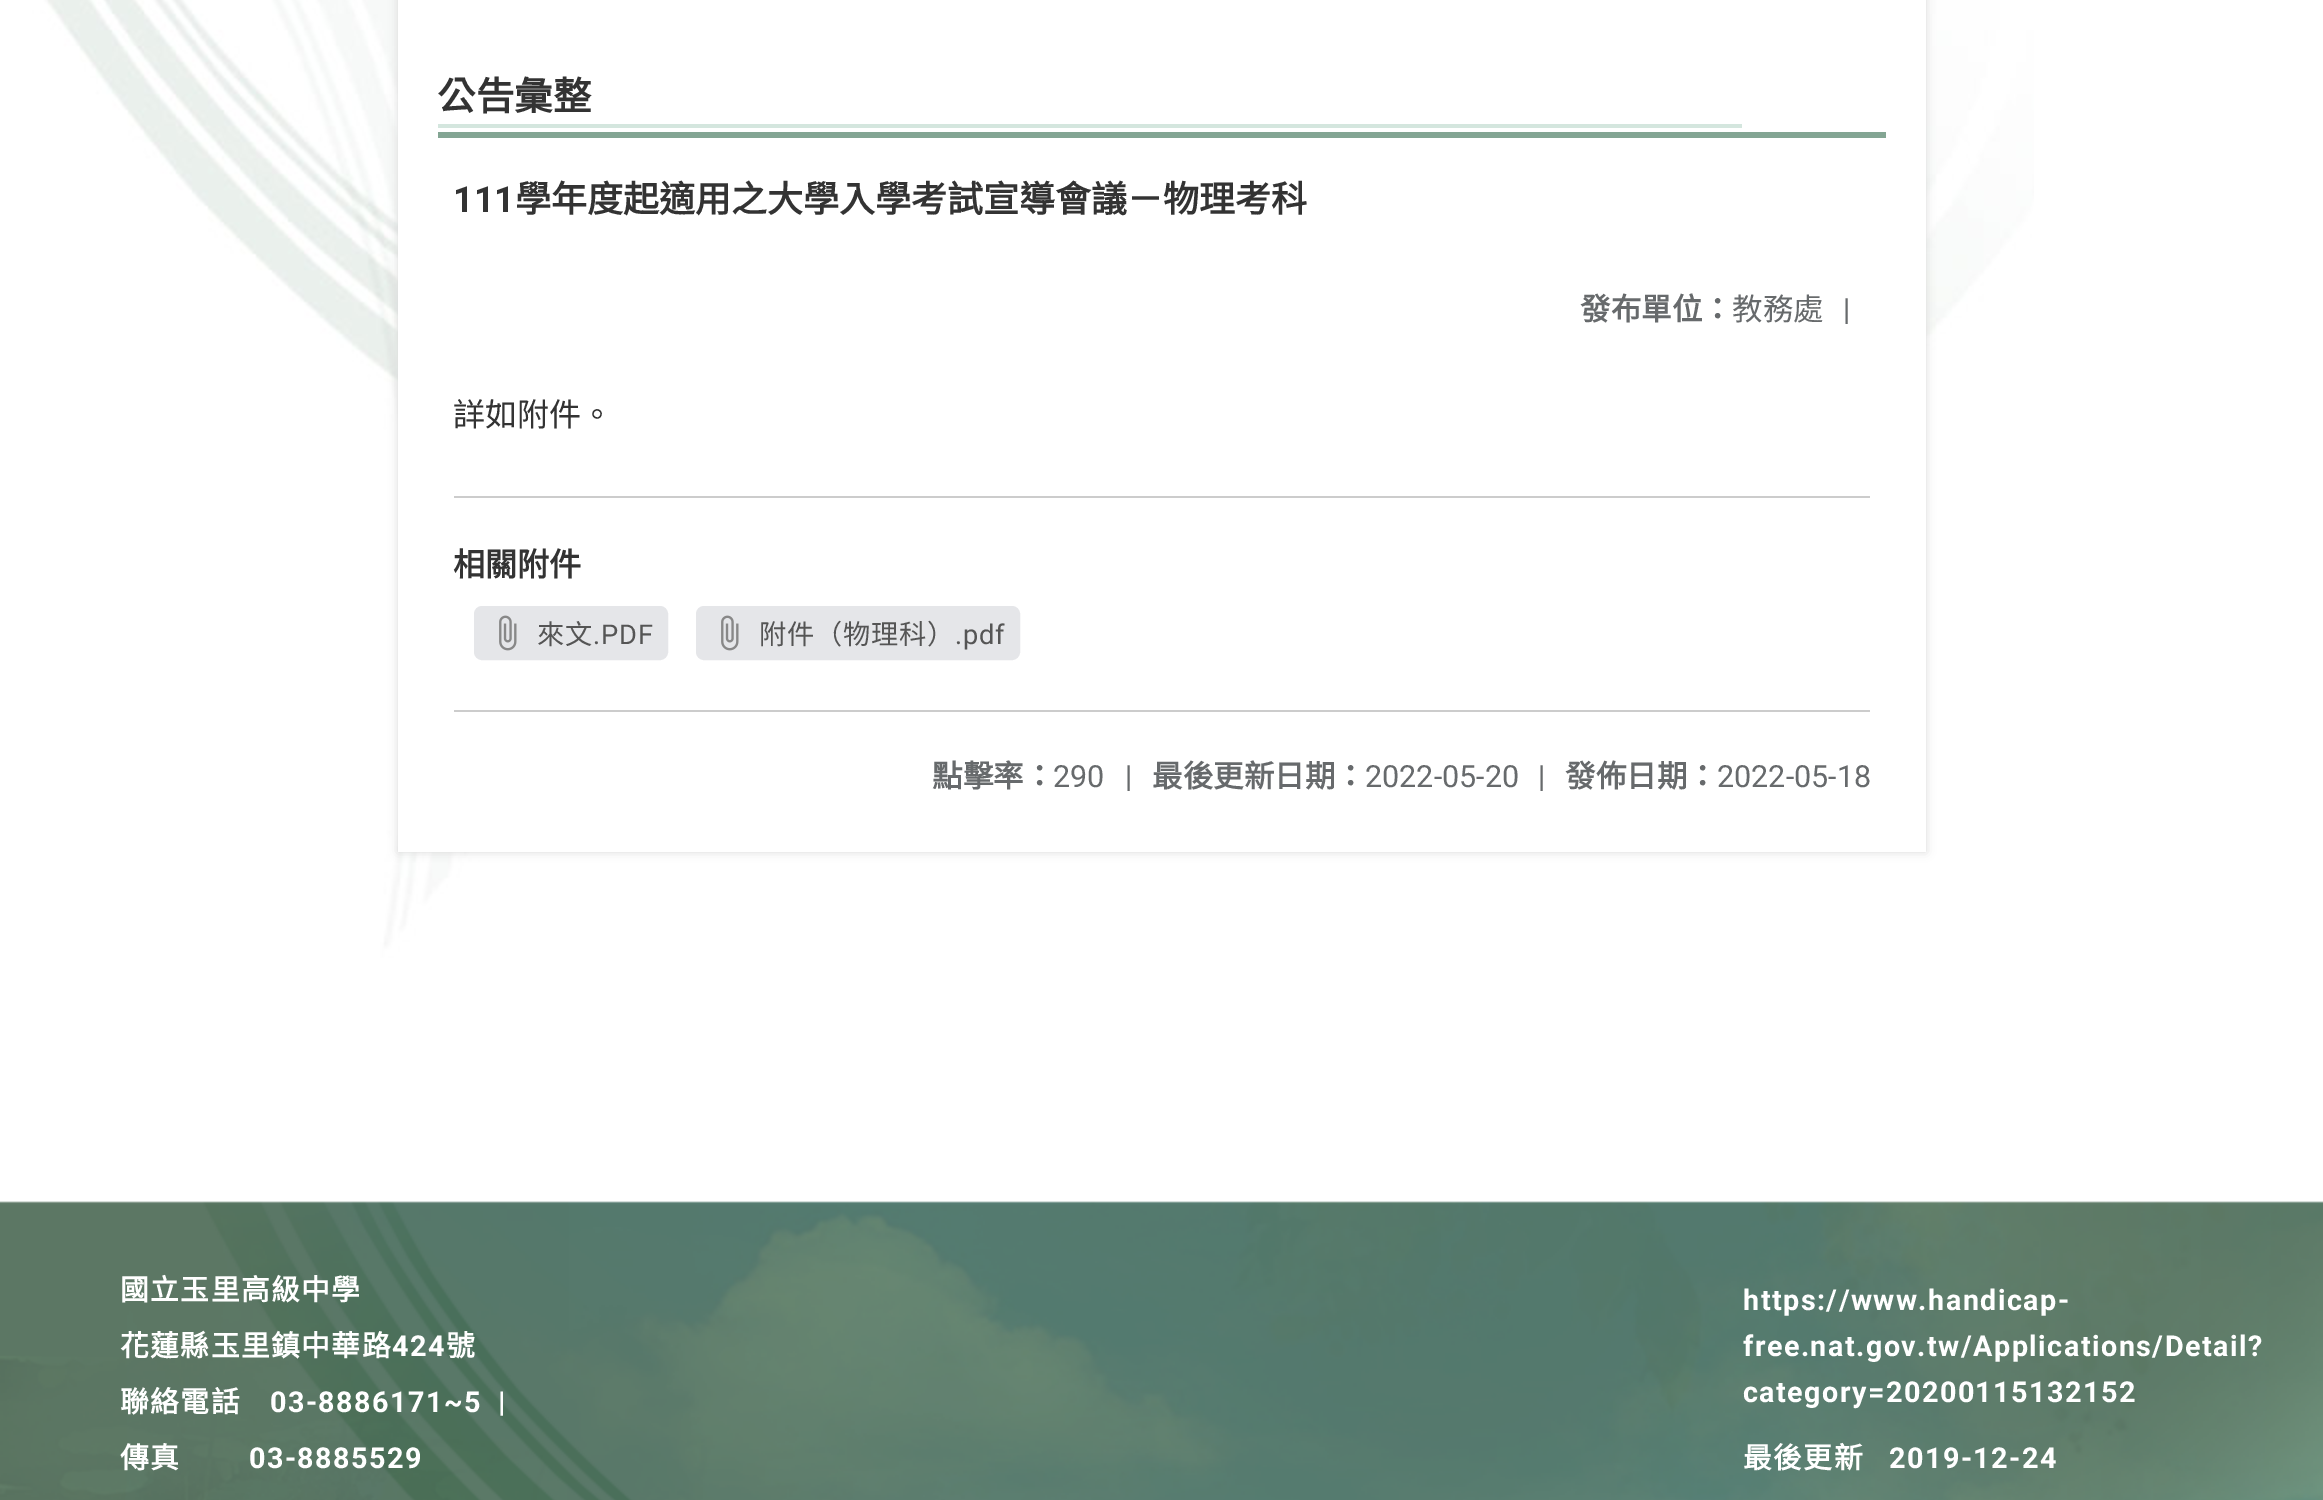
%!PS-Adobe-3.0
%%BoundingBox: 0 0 2323 1500
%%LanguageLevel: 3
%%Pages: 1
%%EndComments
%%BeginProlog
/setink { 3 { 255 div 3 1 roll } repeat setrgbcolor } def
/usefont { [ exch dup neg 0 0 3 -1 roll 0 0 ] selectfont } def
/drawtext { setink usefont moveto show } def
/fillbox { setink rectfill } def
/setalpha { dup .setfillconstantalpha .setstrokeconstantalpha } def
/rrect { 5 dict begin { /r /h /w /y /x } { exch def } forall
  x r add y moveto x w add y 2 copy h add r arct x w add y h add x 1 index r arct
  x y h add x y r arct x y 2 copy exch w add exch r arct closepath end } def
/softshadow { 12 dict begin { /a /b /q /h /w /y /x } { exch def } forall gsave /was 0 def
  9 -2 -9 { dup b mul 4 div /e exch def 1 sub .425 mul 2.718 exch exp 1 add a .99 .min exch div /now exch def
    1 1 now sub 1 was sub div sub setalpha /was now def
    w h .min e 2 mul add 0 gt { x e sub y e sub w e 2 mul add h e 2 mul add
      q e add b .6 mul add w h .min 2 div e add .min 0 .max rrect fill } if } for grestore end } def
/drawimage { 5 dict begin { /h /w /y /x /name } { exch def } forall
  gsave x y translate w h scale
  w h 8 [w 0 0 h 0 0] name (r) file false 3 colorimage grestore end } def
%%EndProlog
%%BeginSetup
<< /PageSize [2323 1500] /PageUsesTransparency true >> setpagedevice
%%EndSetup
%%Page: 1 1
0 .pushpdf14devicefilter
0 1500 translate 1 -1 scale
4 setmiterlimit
0 0 2323 1500 255 255 255 fillbox
(assets/img1.rgb) 0 0 2034 1205 drawimage
216 216 216 setink
398 -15 1528 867 0 5 1 softshadow
398 0 1528 852 255 255 255 fillbox
(公告彙整) 437 110 /NotoSansCJKTC-Bold 38.5 51 51 51 drawtext
438 124 1304 4 212 230 222 fillbox
438 132 1448 6 131 165 147 fillbox
(111) 453 212 /Roboto-Bold 36 51 51 51 drawtext
(學年度起適用之大學入學考試宣導會議－物理考科) 515 212 /NotoSansCJKTC-Bold 36 51 51 51 drawtext
(發布單位：) 1580 320 /NotoSansCJKTC-Bold 30.5 103 106 108 drawtext
(教務處) 1732 320 /NotoSansCJKTC-Regular 30.5 103 106 108 drawtext
(|) 1843 320 /Roboto-Regular 30.5 103 106 108 drawtext
(詳如附件。) 453 426 /NotoSansCJKTC-Regular 32 51 51 51 drawtext
454 496 1416 2 204 204 204 fillbox
(相關附件) 453 576 /NotoSansCJKTC-Bold 32 51 51 51 drawtext
229 230 233 setink
475 607 192 52 7 rrect gsave fill grestore
2 setlinewidth
stroke
(assets/img2.rgb) 499 615 18 36 drawimage
/NotoSansCJKTC-Regular 27.25 usefont
85 85 85 setink
537 644 moveto 0.75 0 (來文) ashow
/Roboto-Regular 27.25 usefont
593 644 moveto 0.75 0 (.PDF) ashow
229 230 233 setink
697 607 322 52 7 rrect gsave fill grestore
stroke
(assets/img2.rgb) 721 615 18 36 drawimage
/NotoSansCJKTC-Regular 27.25 usefont
85 85 85 setink
759 644 moveto 0.75 0 (附件（物理科）) ashow
/Roboto-Regular 27.25 usefont
955 644 moveto 0.75 0 (.pdf) ashow
454 710 1416 2 204 204 204 fillbox
(點擊率：) 932 787 /NotoSansCJKTC-Bold 30.5 103 106 108 drawtext
(290) 1053 787 /Roboto-Regular 30.5 103 106 108 drawtext
(|) 1125 787 /Roboto-Regular 30.5 103 106 108 drawtext
(最後更新日期：) 1152 787 /NotoSansCJKTC-Bold 30.5 103 106 108 drawtext
(2022-05-20) 1365 787 /Roboto-Regular 30.5 103 106 108 drawtext
(|) 1538 787 /Roboto-Regular 30.5 103 106 108 drawtext
(發佈日期：) 1565 787 /NotoSansCJKTC-Bold 30.5 103 106 108 drawtext
(2022-05-18) 1717 787 /Roboto-Regular 30.5 103 106 108 drawtext
(assets/img3.rgb) 0 1201 2323 299 drawimage
/NotoSansCJKTC-Bold 28.75 usefont
255 255 255 setink
120 1300 moveto 1.45 0 (國立玉里高級中學) ashow
120 1356 moveto 1.45 0 (花蓮縣玉里鎮中華路) ashow
/Roboto-Bold 28.75 usefont
392 1356 moveto 1.45 0 (424) ashow
/NotoSansCJKTC-Bold 28.75 usefont
446 1356 moveto 1.45 0 (號) ashow
120 1412 moveto 1.45 0 (聯絡電話) ashow
/Roboto-Bold 28.75 usefont
270 1412 moveto 1.45 0 (03-8886171~5) ashow
498 1412 moveto 1.45 0 (|) ashow
/NotoSansCJKTC-Bold 28.75 usefont
120 1468 moveto 1.45 0 (傳真) ashow
/Roboto-Bold 28.75 usefont
249 1468 moveto 1.45 0 (03-8885529) ashow
1743 1310 moveto 1.45 0 (https://www.handicap-) ashow
1743 1356 moveto 1.45 0 (free.nat.gov.tw/Applications/Detail?) ashow
1743 1402 moveto 1.45 0 (category=20200115132152) ashow
/NotoSansCJKTC-Bold 28.75 usefont
1743 1468 moveto 1.45 0 (最後更新) ashow
/Roboto-Bold 28.75 usefont
1889 1468 moveto 1.45 0 (2019-12-24) ashow
.poppdf14devicefilter showpage
%%EOF
